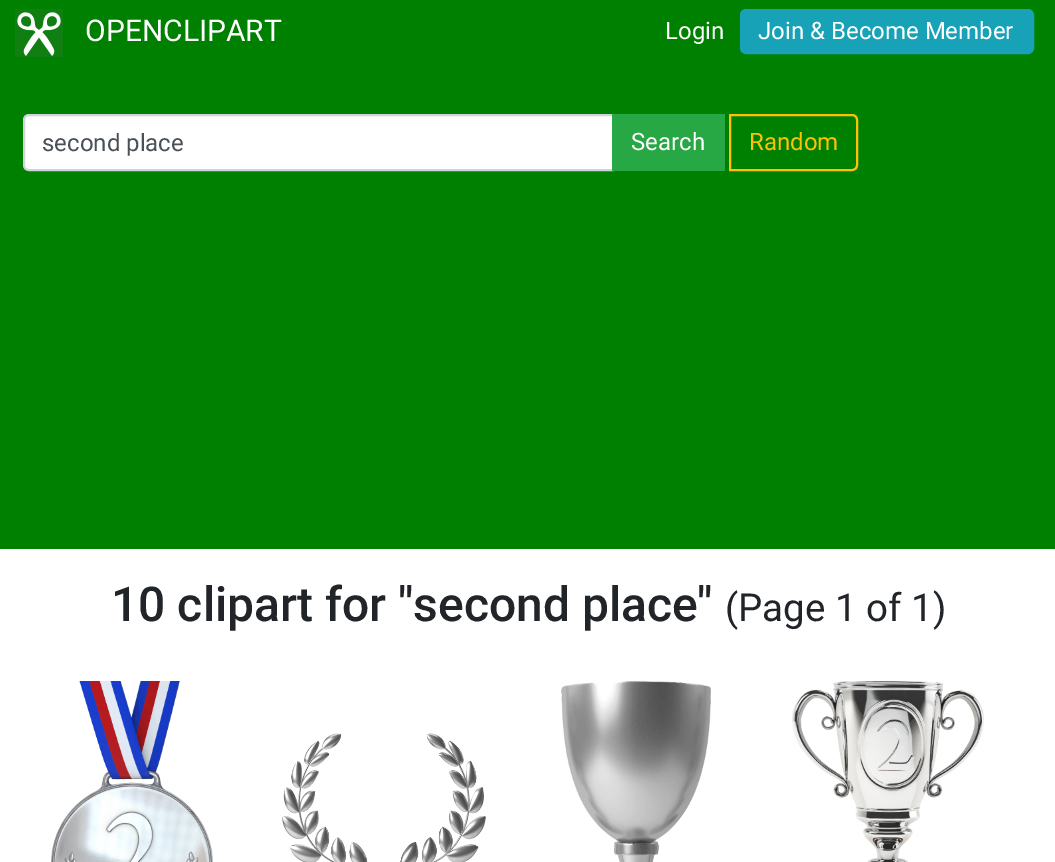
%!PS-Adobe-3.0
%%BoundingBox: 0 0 1055 862
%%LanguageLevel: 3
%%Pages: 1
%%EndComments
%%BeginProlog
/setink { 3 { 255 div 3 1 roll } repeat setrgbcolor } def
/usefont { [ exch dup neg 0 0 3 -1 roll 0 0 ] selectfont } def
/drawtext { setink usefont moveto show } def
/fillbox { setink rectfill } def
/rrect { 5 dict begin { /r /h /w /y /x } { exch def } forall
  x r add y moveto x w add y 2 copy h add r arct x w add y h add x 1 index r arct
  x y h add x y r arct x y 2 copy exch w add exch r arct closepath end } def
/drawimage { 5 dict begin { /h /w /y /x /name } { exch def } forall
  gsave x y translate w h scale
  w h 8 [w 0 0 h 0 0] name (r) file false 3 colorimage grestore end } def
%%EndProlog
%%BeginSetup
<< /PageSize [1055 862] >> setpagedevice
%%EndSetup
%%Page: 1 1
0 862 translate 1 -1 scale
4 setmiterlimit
0 0 1055 862 255 255 255 fillbox
0 0 1055 549 0 128 0 fillbox
(assets/img1.rgb) 15 9 48 48 drawimage
(OPENCLIPART) 85 41 /Roboto-Regular 30 255 255 255 drawtext
(Login) 665 39 /Roboto-Regular 24 255 255 255 drawtext
23 162 184 setink
741 10 292 43 5 rrect gsave fill grestore
2 setlinewidth
stroke
(Join & Become Member) 758 39 /Roboto-Regular 24 255 255 255 drawtext
29 115 moveto 613 115 lineto 613 170 lineto 29 170 lineto 26 170 24 168 24 165 curveto 24 120 lineto 24 117 26 115 29 115 curveto closepath gsave fill grestore
206 212 218 setink
stroke
(second place) 42 151 /Roboto-Regular 24 73 80 87 drawtext
612 114 113 57 40 167 69 fillbox
(Search) 631 150 /Roboto-Regular 24 255 255 255 drawtext
255 193 7 setink
730 115 moveto 852 115 lineto 855 115 857 117 857 120 curveto 857 165 lineto 857 168 855 170 852 170 curveto 730 170 lineto closepath stroke
(Random) 749 150 /Roboto-Regular 24 255 193 7 drawtext
(10 clipart for "second place") 111 621 /Roboto-Medium 48 33 37 41 drawtext
(\(Page 1 of 1\)) 725 621 /Roboto-Regular 38.5 33 37 41 drawtext
(assets/img2.rgb) 51 681 162 181 drawimage
(assets/img3.rgb) 282 733 204 129 drawimage
(assets/img4.rgb) 561 681 150 181 drawimage
(assets/img5.rgb) 792 681 192 181 drawimage
showpage
%%EOF
